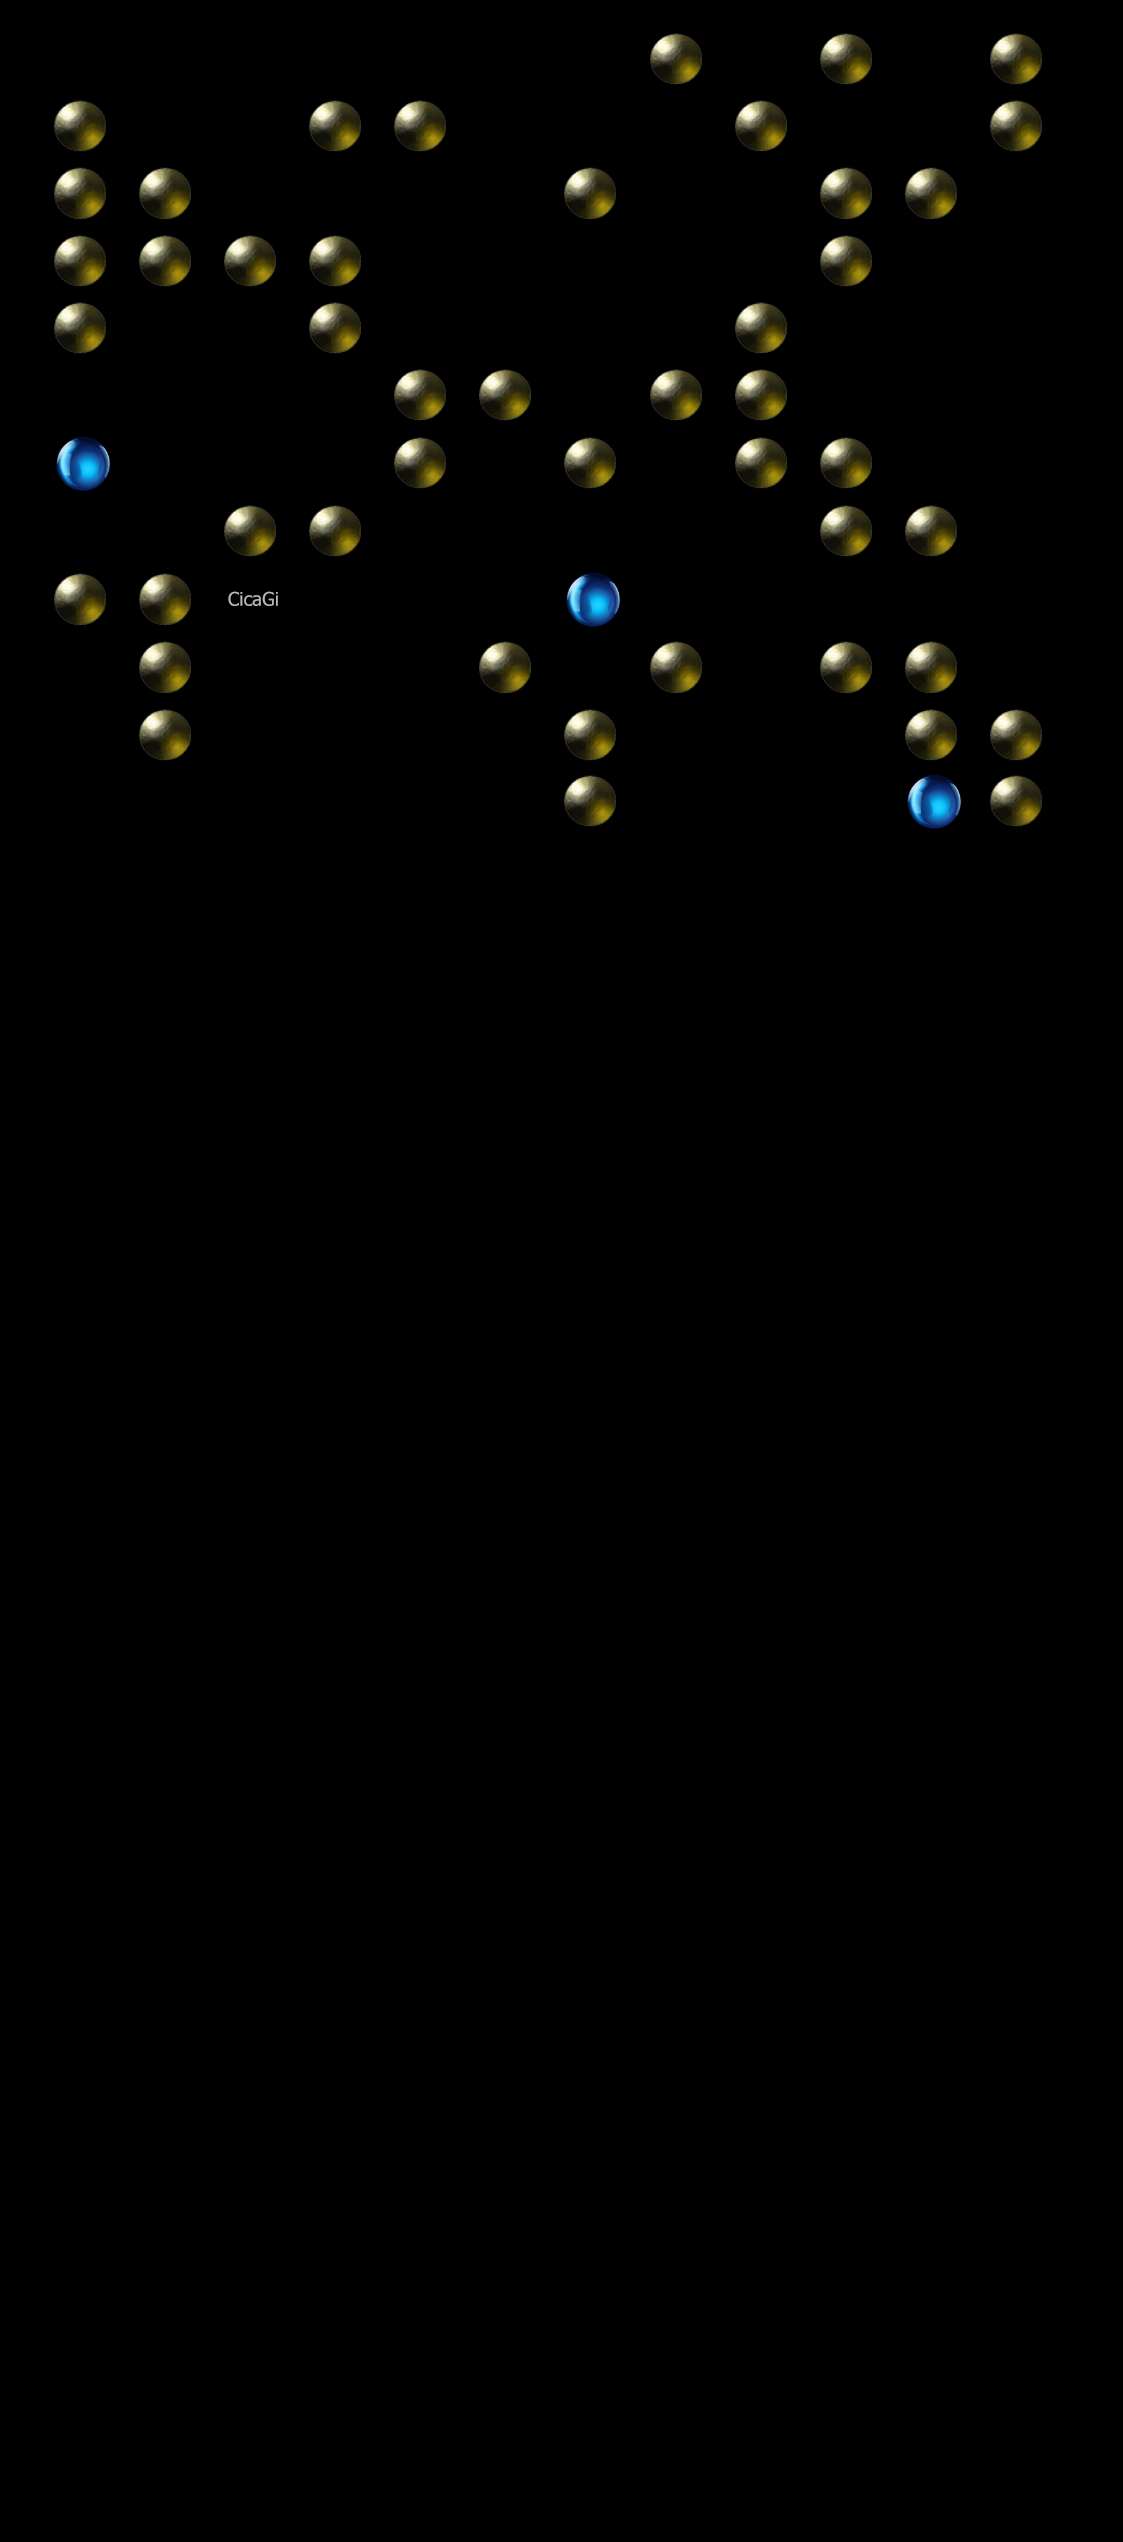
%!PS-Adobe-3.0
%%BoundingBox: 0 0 1123 2542
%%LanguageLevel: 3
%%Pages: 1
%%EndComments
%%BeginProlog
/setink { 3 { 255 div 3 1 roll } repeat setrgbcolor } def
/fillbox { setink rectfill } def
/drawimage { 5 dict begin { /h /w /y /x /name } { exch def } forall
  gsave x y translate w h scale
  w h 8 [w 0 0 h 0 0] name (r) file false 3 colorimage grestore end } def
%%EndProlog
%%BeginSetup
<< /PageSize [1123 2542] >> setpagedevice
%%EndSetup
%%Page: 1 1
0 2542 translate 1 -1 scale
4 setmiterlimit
0 0 1123 2542 0 0 0 fillbox
(assets/img1.rgb) 650 33 52 52 drawimage
(assets/img1.rgb) 820 33 52 52 drawimage
(assets/img2.rgb) 990 33 52 52 drawimage
(assets/img3.rgb) 54 100 52 52 drawimage
(assets/img1.rgb) 309 100 52 52 drawimage
(assets/img3.rgb) 394 100 52 52 drawimage
(assets/img4.rgb) 735 100 52 52 drawimage
(assets/img2.rgb) 990 100 52 52 drawimage
(assets/img5.rgb) 54 167 52 53 drawimage
(assets/img6.rgb) 139 167 52 53 drawimage
(assets/img5.rgb) 564 167 52 53 drawimage
(assets/img6.rgb) 820 167 52 53 drawimage
(assets/img5.rgb) 905 167 52 53 drawimage
(assets/img3.rgb) 54 235 52 52 drawimage
(assets/img1.rgb) 139 235 52 52 drawimage
(assets/img7.rgb) 224 235 52 52 drawimage
(assets/img1.rgb) 309 235 52 52 drawimage
(assets/img1.rgb) 820 235 52 52 drawimage
(assets/img3.rgb) 54 302 52 52 drawimage
(assets/img1.rgb) 309 302 52 52 drawimage
(assets/img4.rgb) 735 302 52 52 drawimage
(assets/img3.rgb) 394 369 52 52 drawimage
(assets/img4.rgb) 479 369 52 52 drawimage
(assets/img1.rgb) 650 369 52 52 drawimage
(assets/img4.rgb) 735 369 52 52 drawimage
(assets/img8.rgb) 56 436 55 55 drawimage
(assets/img3.rgb) 394 437 52 52 drawimage
(assets/img3.rgb) 564 437 52 52 drawimage
(assets/img4.rgb) 735 437 52 52 drawimage
(assets/img1.rgb) 820 437 52 52 drawimage
(assets/img7.rgb) 224 505 52 52 drawimage
(assets/img1.rgb) 309 505 52 52 drawimage
(assets/img1.rgb) 820 505 52 52 drawimage
(assets/img3.rgb) 905 505 52 52 drawimage
(assets/img5.rgb) 54 573 52 53 drawimage
(assets/img6.rgb) 139 573 52 53 drawimage
(assets/img9.rgb) 228 591 50 15 drawimage
(assets/img10.rgb) 566 572 55 55 drawimage
(assets/img6.rgb) 139 641 52 53 drawimage
(assets/img11.rgb) 479 641 52 53 drawimage
(assets/img6.rgb) 650 641 52 53 drawimage
(assets/img6.rgb) 820 641 52 53 drawimage
(assets/img5.rgb) 905 641 52 53 drawimage
(assets/img1.rgb) 139 709 52 52 drawimage
(assets/img3.rgb) 564 709 52 52 drawimage
(assets/img3.rgb) 905 709 52 52 drawimage
(assets/img2.rgb) 990 709 52 52 drawimage
(assets/img3.rgb) 564 775 52 52 drawimage
(assets/img8.rgb) 907 774 55 55 drawimage
(assets/img2.rgb) 990 775 52 52 drawimage
showpage
%%EOF
